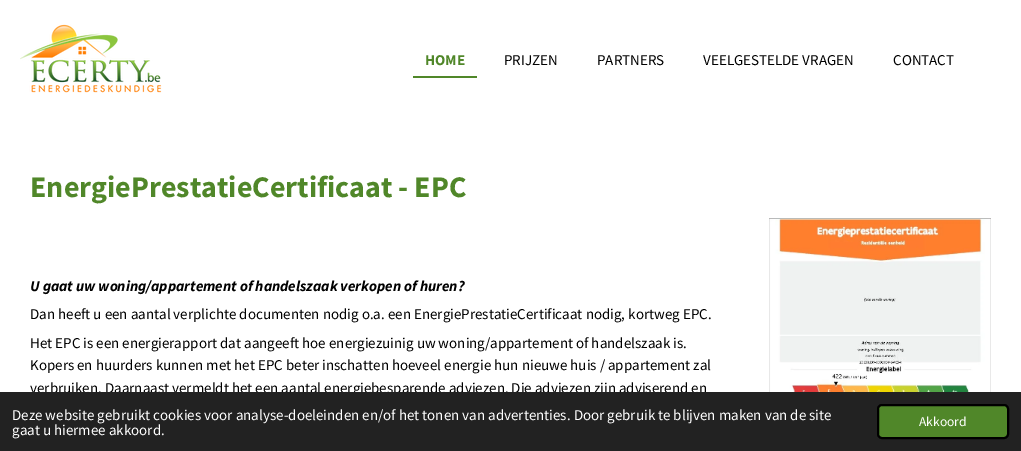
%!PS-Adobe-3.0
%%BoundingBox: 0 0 1021 451
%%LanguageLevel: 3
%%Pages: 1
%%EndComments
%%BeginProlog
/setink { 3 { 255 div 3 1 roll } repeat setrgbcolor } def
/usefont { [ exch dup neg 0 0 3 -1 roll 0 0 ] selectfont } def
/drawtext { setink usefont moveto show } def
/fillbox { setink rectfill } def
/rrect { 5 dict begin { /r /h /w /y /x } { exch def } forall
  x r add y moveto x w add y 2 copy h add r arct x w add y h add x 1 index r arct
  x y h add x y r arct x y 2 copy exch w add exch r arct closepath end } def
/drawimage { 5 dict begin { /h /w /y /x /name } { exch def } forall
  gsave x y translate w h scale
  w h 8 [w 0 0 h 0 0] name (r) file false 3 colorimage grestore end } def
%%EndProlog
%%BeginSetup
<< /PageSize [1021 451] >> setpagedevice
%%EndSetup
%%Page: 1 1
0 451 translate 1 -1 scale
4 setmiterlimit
0 0 1021 451 255 255 255 fillbox
(assets/img1.rgb) 20 24 142 69 drawimage
413 76 64 2 80 135 41 fillbox
(HOME) 425 65 /SourceSansPro-Bold 15 80 135 41 drawtext
(PRIJZEN) 504 65 /SourceSansPro-Regular 15 0 0 0 drawtext
(PARTNERS) 597 65 /SourceSansPro-Regular 15 0 0 0 drawtext
(VEELGESTELDE VRAGEN) 703 65 /SourceSansPro-Regular 15 0 0 0 drawtext
(CONTACT) 893 65 /SourceSansPro-Regular 15 0 0 0 drawtext
(EnergiePrestatieCertificaat - EPC) 30 197 /SourceSansPro-Bold 30 80 135 41 drawtext
(U gaat uw woning/appartement of handelszaak verkopen of huren?) 30 291 /SourceSansPro-BoldItalic 15 0 0 0 drawtext
(Dan heeft u een aantal verplichte documenten nodig o.a. een EnergiePrestatieCertificaat nodig, kortweg EPC.) 30 319 /SourceSansPro-Regular 15 0 0 0 drawtext
(Het EPC is een energierapport dat aangeeft hoe energiezuinig uw woning/appartement of handelszaak is.) 30 348 /SourceSansPro-Regular 15 0 0 0 drawtext
(Kopers en huurders kunnen met het EPC beter inschatten hoeveel energie hun nieuwe huis / appartement zal) 30 370 /SourceSansPro-Regular 15 0 0 0 drawtext
(verbruiken. Daarnaast vermeldt het een aantal energiebesparende adviezen. Die adviezen zijn adviserend en) 30 393 /SourceSansPro-Regular 15 0 0 0 drawtext
(assets/img2.rgb) 769 218 222 174 drawimage
0 392 1021 59 34 34 34 fillbox
(Deze website gebruikt cookies voor analyse-doeleinden en/of het tonen van advertenties. Door gebruik te blijven maken van de site) 12 420 /SourceSansPro-Regular 15 255 255 255 drawtext
(gaat u hiermee akkoord.) 12 435 /SourceSansPro-Regular 15 255 255 255 drawtext
80 135 41 setink
878 405 130 33 4 rrect gsave fill grestore
0 0 0 setink
2 setlinewidth
stroke
(Akkoord) 919 426 /SourceSansPro-Regular 13.5 255 255 255 drawtext
showpage
%%EOF
